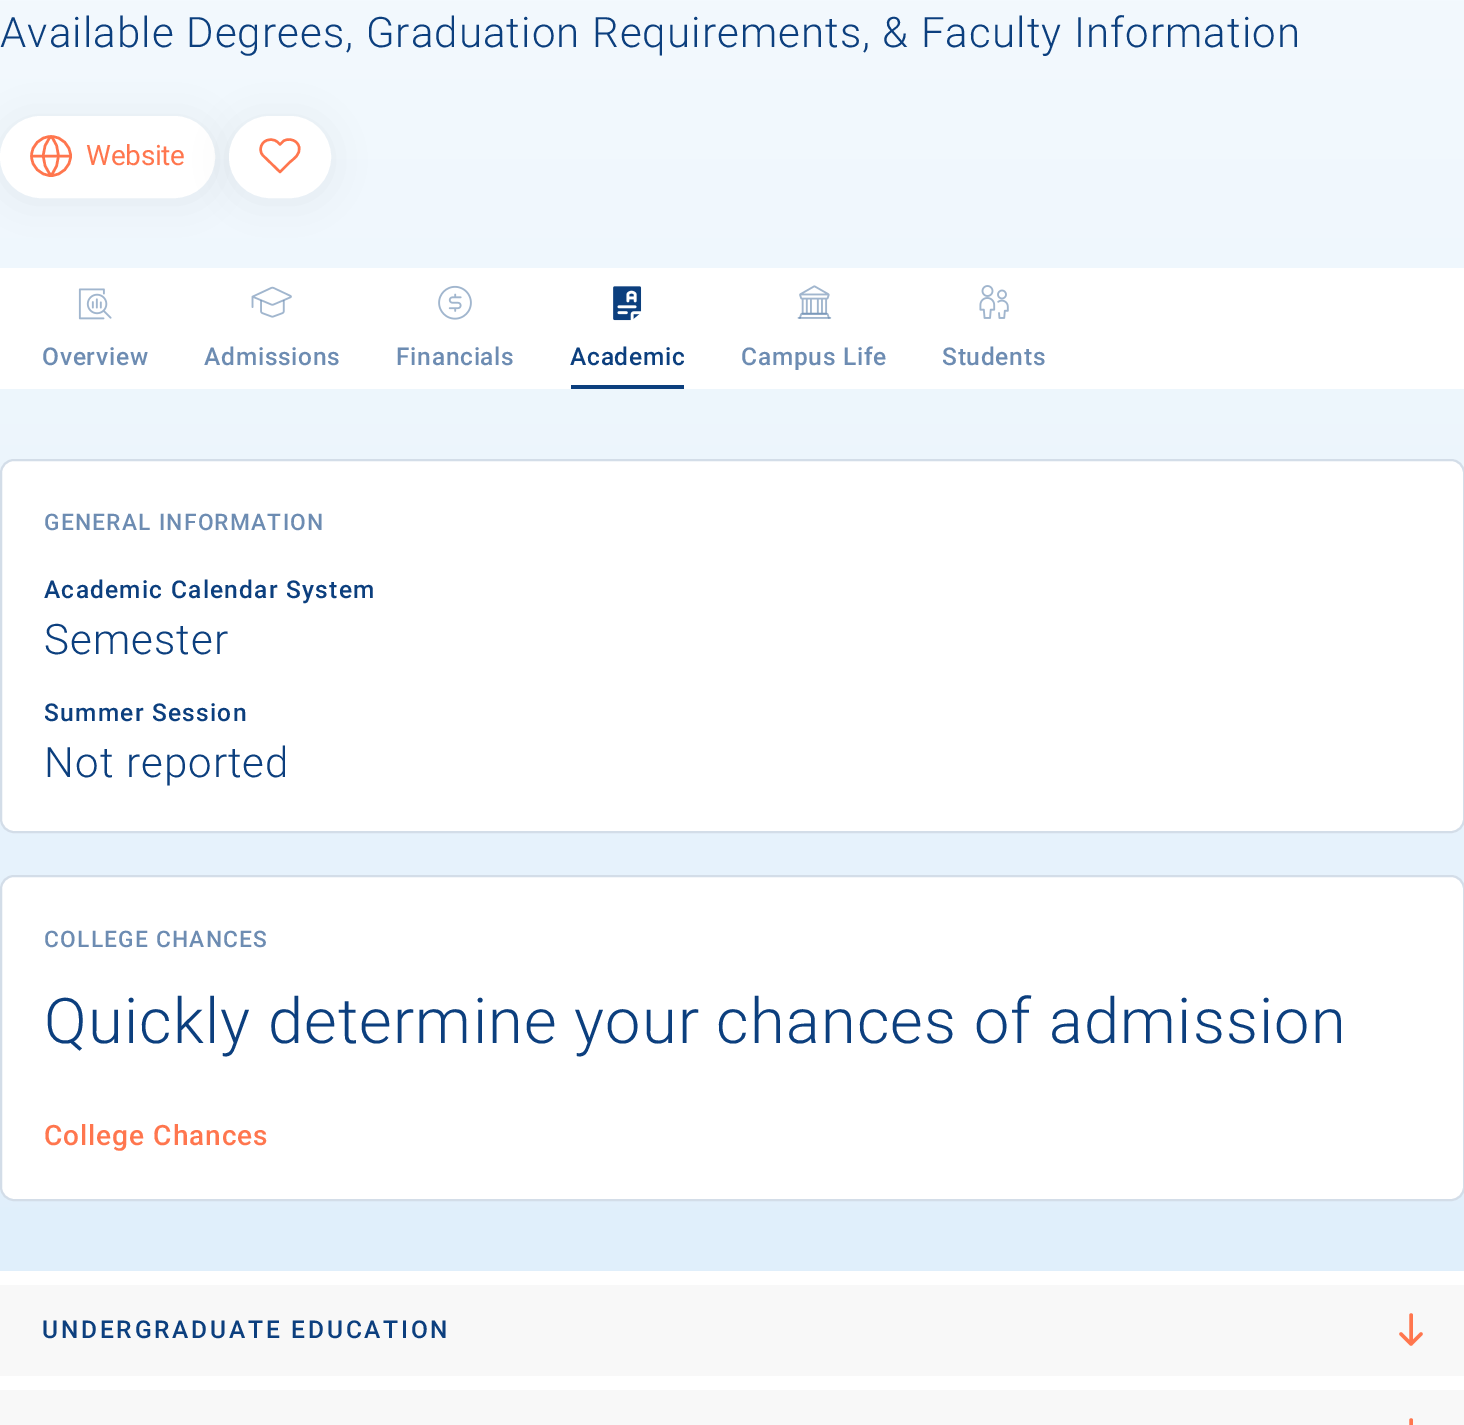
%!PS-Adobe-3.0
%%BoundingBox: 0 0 1464 1425
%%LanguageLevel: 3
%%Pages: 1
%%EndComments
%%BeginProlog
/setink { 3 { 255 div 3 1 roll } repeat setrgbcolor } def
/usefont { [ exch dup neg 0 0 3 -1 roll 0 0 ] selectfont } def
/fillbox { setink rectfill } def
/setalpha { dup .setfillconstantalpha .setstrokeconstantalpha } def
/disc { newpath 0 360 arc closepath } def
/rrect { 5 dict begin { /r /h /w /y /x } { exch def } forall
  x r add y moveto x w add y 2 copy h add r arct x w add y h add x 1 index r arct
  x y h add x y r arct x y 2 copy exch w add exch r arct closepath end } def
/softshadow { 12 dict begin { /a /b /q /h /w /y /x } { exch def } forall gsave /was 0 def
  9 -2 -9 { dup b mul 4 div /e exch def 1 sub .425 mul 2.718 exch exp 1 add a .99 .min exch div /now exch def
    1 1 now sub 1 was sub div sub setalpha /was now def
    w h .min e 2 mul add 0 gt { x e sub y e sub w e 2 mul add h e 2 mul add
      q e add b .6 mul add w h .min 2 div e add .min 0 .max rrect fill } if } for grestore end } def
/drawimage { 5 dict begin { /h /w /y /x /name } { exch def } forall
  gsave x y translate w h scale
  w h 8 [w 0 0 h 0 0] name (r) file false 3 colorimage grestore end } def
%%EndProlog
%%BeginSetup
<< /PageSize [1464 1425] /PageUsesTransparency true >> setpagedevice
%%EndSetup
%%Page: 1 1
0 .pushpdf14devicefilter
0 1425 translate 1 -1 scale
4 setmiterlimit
0 0 1464 1425 255 255 255 fillbox
gsave 0 0 moveto 1464 0 lineto 1464 1271 lineto 0 1271 lineto closepath clip newpath
<< /ShadingType 2 /ColorSpace /DeviceRGB /Coords [732 1271 732 -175] /Extend [true true] /Function << /FunctionType 2 /Domain [0 1] /C0 [0.878 0.937 0.984] /C1 [0.965 0.984 0.996] /N 1 >> >> shfill grestore
/Roboto-Light 42 usefont
12 63 126 setink
0 47 moveto 1.1 0 (Available Degrees, Graduation Requirements, & Faculty Information) ashow
0 0 0 setink
0 119 215 82 41 21 0.05 softshadow
255 255 255 setink
1 117 213 80 40 rrect gsave fill grestore
2 setlinewidth
stroke
255 118 78 setink
2.5 setlinewidth
51 156 19.5 disc stroke
1 setlinecap
1 setlinejoin
31.5 156 moveto 70 156 lineto 51 136.5 moveto 61 147.5 61 164 51 175 curveto 40.5 164 40.5 147.5 51 136.5 curveto closepath stroke
/Roboto-Regular 28 usefont
86 165 moveto -0.25 0 (Website) ashow
0 0 0 setink
229 119 102 82 41 21 0.05 softshadow
255 255 255 setink
230 117 100 80 40 rrect gsave fill grestore
2 setlinewidth
0 setlinecap
0 setlinejoin
stroke
255 118 78 setink
2.4 setlinewidth
1 setlinecap
1 setlinejoin
296.5 142.5 moveto 293 139 287.5 138.5 283.5 141 curveto 280 144.5 lineto 278 142.5 lineto 274 138.5 267.5 138.5 263.5 142.5 curveto 259.5 146.5 259.5 152.5 263.5 156 curveto 280 172 lineto 289.5 162.5 lineto 294 158.5 300.5 154.5 299 147.5 curveto 299 145.5 298 144 296.5 142.5 curveto closepath stroke
0 268 1464 121 255 255 255 fillbox
(assets/img1.rgb) 78 288 34 32 drawimage
/Roboto-Medium 24.5 usefont
109 140 178 setink
42 365 moveto 0.75 0 (Overview) ashow
(assets/img2.rgb) 251 286 41 32 drawimage
204 365 moveto 0.75 0 (Admissions) ashow
(assets/img3.rgb) 438 285 34 35 drawimage
396 365 moveto 0.75 0 (Financials) ashow
571 385 113 4 12 63 126 fillbox
(assets/img4.rgb) 613 286 29 35 drawimage
570 365 moveto 0.75 0 (Academic) ashow
(assets/img5.rgb) 797 285 35 34 drawimage
109 140 178 setink
741 365 moveto 0.75 0 (Campus Life) ashow
(assets/img6.rgb) 979 285 30 34 drawimage
942 365 moveto 0.75 0 (Students) ashow
255 255 255 setink
1 460 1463 372 13 rrect gsave fill grestore
211 221 232 setink
2 setlinewidth
0 setlinecap
0 setlinejoin
stroke
/Roboto-Medium 22.75 usefont
109 140 178 setink
44 530 moveto 1.25 0 (GENERAL INFORMATION) ashow
/Roboto-Medium 24.5 usefont
12 63 126 setink
44 598 moveto 1.25 0 (Academic Calendar System) ashow
/Roboto-Light 42 usefont
44 654 moveto 1.1 0 (Semester) ashow
/Roboto-Medium 24.5 usefont
44 721 moveto 1.25 0 (Summer Session) ashow
/Roboto-Light 42 usefont
44 777 moveto 1.1 0 (Not reported) ashow
255 255 255 setink
1 876 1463 324 13 rrect gsave fill grestore
211 221 232 setink
stroke
/Roboto-Medium 22.75 usefont
109 140 178 setink
44 947 moveto 1.25 0 (COLLEGE CHANCES) ashow
/Roboto-Light 63 usefont
12 63 126 setink
44 1043 moveto 1.2 0 (Quickly determine your chances of admission) ashow
/Roboto-Medium 28 usefont
255 118 78 setink
44 1145 moveto 1 0 (College Chances) ashow
0 1285 1464 91 248 248 248 fillbox
/Roboto-Medium 24.5 usefont
12 63 126 setink
42 1338 moveto 2.8 0 (UNDERGRADUATE EDUCATION) ashow
255 118 78 setink
3.5 setlinewidth
1 setlinecap
1 setlinejoin
1421 1334 moveto 1411 1344 lineto 1401 1334 lineto 1411 1344 moveto 1411 1315 lineto stroke
0 1390 1464 35 248 248 248 fillbox
255 118 78 setink
1421 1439 moveto 1411 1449 lineto 1401 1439 lineto 1411 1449 moveto 1411 1420 lineto stroke
.poppdf14devicefilter showpage
%%EOF
